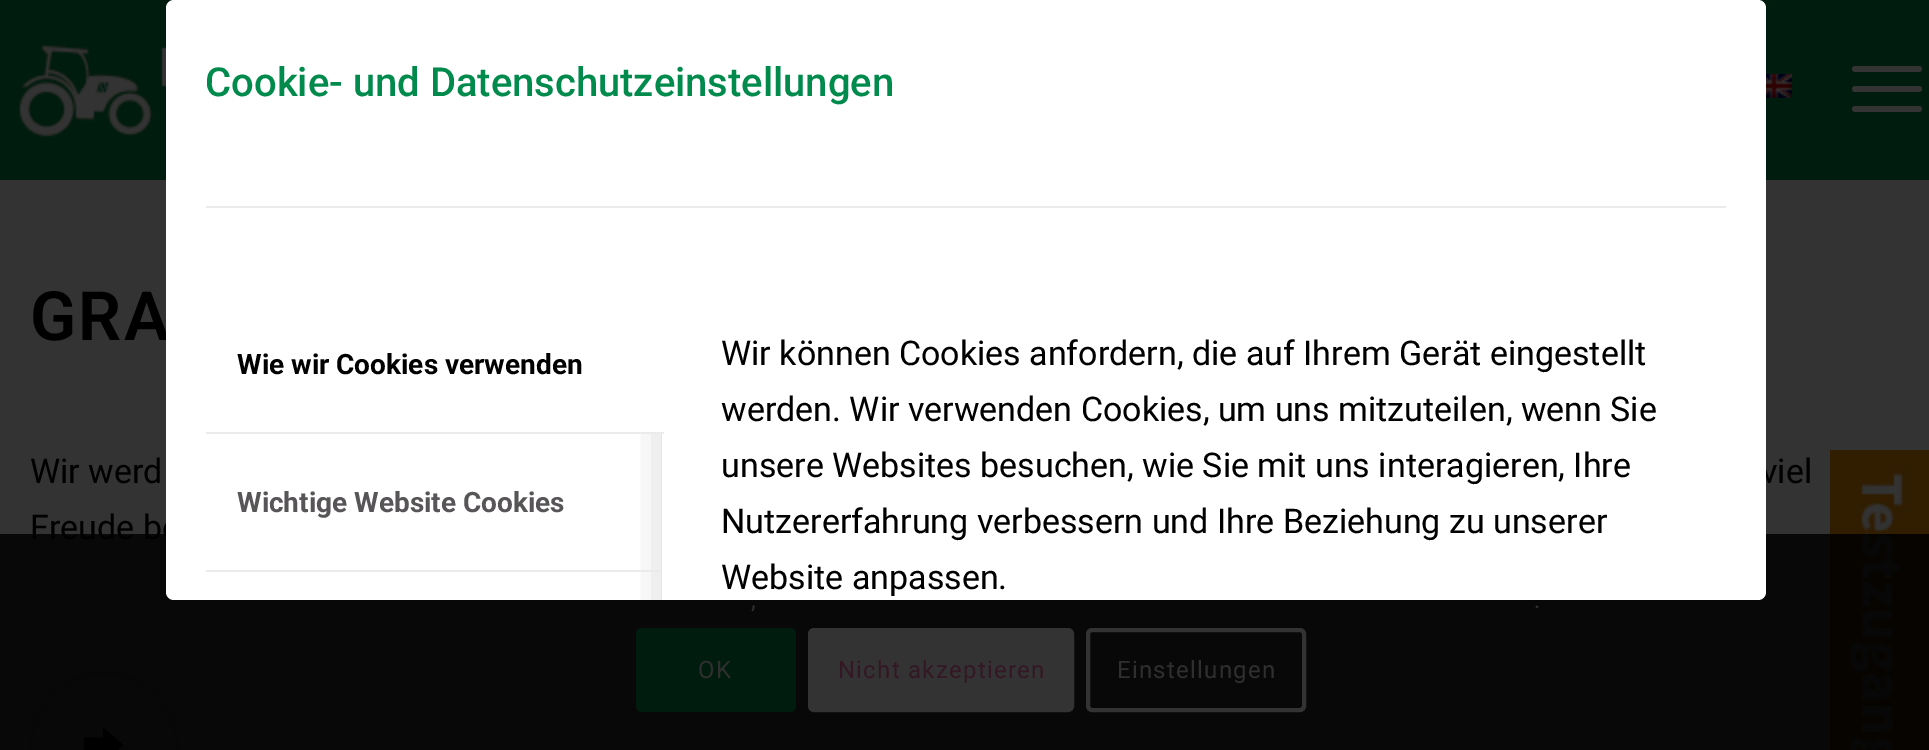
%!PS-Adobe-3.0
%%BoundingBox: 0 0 1929 750
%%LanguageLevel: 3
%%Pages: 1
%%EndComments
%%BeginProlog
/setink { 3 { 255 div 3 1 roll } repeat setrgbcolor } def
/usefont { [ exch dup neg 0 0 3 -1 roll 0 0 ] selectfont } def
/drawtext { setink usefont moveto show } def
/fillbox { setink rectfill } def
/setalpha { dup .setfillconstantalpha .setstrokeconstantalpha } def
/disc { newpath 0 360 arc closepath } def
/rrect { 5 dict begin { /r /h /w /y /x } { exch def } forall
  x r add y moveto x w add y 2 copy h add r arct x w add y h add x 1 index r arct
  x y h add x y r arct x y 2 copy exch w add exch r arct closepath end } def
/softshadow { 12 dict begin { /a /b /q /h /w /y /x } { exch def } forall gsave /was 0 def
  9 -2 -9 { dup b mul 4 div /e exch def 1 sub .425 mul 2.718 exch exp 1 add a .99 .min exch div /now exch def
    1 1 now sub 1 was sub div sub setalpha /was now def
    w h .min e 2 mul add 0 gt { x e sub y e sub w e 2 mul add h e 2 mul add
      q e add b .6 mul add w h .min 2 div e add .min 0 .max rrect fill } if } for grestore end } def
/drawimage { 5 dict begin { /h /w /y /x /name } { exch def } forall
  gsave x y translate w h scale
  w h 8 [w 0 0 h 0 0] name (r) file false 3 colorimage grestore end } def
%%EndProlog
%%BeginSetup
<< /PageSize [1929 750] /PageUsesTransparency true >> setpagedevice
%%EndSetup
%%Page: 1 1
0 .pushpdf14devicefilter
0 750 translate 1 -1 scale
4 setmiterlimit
0 0 1929 750 51 51 51 fillbox
0 0 1929 180 0 28 15 fillbox
/Roboto-SemiBold 68 usefont
0 0 0 setink
30 340 moveto 2 0 (GRA) ashow
(viel) 1761 483 /Roboto-Regular 34 0 0 0 drawtext
(Freude be) 30 539 /Roboto-Regular 34 0 0 0 drawtext
47 47 47 setink
2 setlinewidth
104 746 73 disc stroke
0 0 0 setink
103 727.5 moveto 123.5 745 lineto 103 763 lineto 103 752.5 lineto 84 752.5 lineto 84 737.5 lineto 103 737.5 lineto closepath fill
(assets/img3.rgb) 1830 450 99 300 drawimage
0.85 setalpha
0 534 1929 216 0 0 0 fillbox
1 setalpha
255 255 255 setink
166 0 1600 600 8 rrect fill
(Cookie- und Datenschutzeinstellungen) 205 96 /Roboto-Medium 40 0 138 76 drawtext
206 206 1520 2 235 235 235 fillbox
0 28 15 setink
636 628 160 84 6 rrect fill
51 51 51 setink
810 630 262 80 4 rrect gsave fill grestore
4 setlinewidth
stroke
1088 630 216 80 4 rrect stroke
gsave
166 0 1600 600 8 rrect clip newpath
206 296 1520 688 rectclip
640 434 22 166 rectclip
0 0 0 setink
666 316 1024 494 0 20 0.2 softshadow
grestore
255 255 255 setink
210 296 moveto 664 296 lineto 664 434 lineto 206 434 lineto 206 300 lineto 206 298 208 296 210 296 curveto closepath fill
206 432 458 2 235 235 235 fillbox
(Wie wir Cookies verwenden) 237 374 /Roboto-Bold 28 0 0 0 drawtext
206 570 456 2 235 235 235 fillbox
(Wichtige Website Cookies) 237 512 /Roboto-Bold 28 87 85 87 drawtext
(Wir können Cookies anfordern, die auf Ihrem Gerät eingestellt) 721 365 /Roboto-Regular 34 0 0 0 drawtext
(werden. Wir verwenden Cookies, um uns mitzuteilen, wenn Sie) 721 421 /Roboto-Regular 34 0 0 0 drawtext
(unsere Websites besuchen, wie Sie mit uns interagieren, Ihre) 721 477 /Roboto-Regular 34 0 0 0 drawtext
(Nutzererfahrung verbessern und Ihre Beziehung zu unserer) 721 533 /Roboto-Regular 34 0 0 0 drawtext
(Website anpassen.) 721 589 /Roboto-Regular 34 0 0 0 drawtext
(assets/img1.rgb) 19 45 147 98 drawimage
(assets/img2.rgb) 1766 74 26 24 drawimage
51 51 51 setink
1852 86 70 6 3 rrect fill
1852 66 70 6 3 rrect fill
1852 106 70 6 3 rrect fill
(Wir werd) 30 483 /Roboto-Regular 34 0 0 0 drawtext
/Roboto-Regular 24 usefont
47 47 47 setink
751 608 moveto 1.25 0 (,) ashow
1534 608 moveto 1.25 0 (.) ashow
698 678 moveto 1.25 0 (OK) ashow
51 23 36 setink
838 678 moveto 1.25 0 (Nicht akzeptieren) ashow
47 47 47 setink
1117 678 moveto 1.25 0 (Einstellungen) ashow
.poppdf14devicefilter showpage
%%EOF
